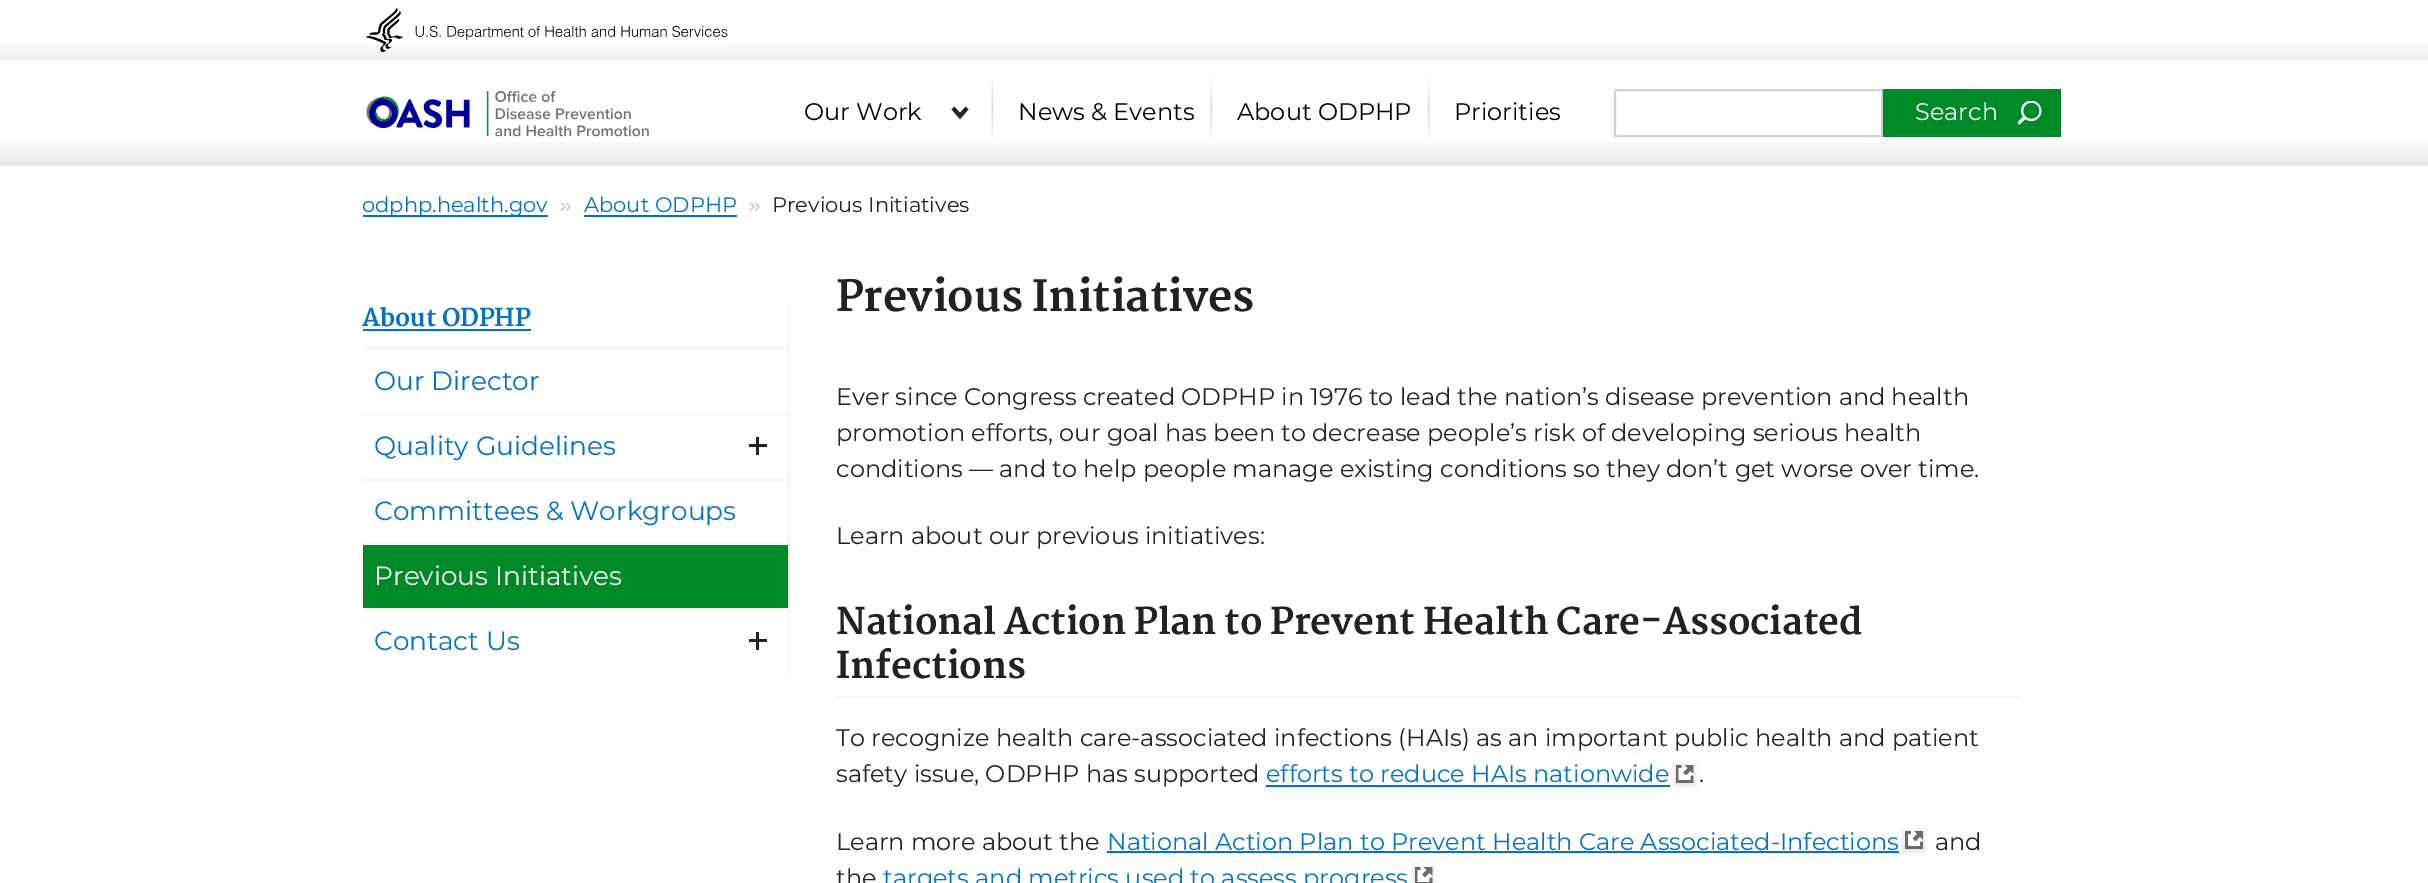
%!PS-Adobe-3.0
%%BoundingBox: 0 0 2428 883
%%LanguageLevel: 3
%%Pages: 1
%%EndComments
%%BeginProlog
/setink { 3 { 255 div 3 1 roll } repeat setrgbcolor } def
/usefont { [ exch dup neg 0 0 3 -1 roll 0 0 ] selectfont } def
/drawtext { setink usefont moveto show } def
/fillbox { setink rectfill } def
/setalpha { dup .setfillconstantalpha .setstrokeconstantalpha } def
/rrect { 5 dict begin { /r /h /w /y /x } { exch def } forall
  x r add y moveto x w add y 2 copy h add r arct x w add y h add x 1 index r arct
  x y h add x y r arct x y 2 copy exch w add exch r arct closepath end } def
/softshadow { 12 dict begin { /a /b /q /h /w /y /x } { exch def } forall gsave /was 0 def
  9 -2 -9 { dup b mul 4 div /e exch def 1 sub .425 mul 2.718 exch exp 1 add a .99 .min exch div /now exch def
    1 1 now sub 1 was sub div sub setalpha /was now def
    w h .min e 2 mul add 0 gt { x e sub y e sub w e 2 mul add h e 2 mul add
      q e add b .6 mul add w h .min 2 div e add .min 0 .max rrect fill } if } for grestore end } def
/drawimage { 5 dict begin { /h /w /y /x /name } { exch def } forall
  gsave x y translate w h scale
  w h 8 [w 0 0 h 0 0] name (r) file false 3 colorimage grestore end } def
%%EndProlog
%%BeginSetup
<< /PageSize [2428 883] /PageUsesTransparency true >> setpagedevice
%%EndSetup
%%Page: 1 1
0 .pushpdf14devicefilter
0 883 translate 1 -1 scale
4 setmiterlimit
0 0 2428 883 255 255 255 fillbox
(assets/img1.rgb) 0 142 2428 25 drawimage
gsave 0 44 moveto 2428 44 lineto 2428 60 lineto 0 60 lineto closepath clip newpath
<< /ShadingType 2 /ColorSpace /DeviceRGB /Coords [1214 0 1214 60] /Extend [true true] /Function << /FunctionType 3 /Domain [0 1] /Functions [<< /FunctionType 2 /Domain [0 1] /C0 [1 1 1] /C1 [1 1 1] /N 1 >> << /FunctionType 2 /Domain [0 1] /C0 [1 1 1] /C1 [0.918 0.929 0.933] /N 1 >>] /Bounds [0.69] /Encode [0 1 0 1] >> >> shfill grestore
(assets/img2.rgb) 366 8 362 44 drawimage
(assets/img3.rgb) 366 91 283 46 drawimage
(Our Work) 804 120 /Montserrat-Regular 24 0 0 0 drawtext
34 34 34 setink
4 setlinewidth
967 108 moveto 960 116 lineto 953 108 lineto stroke
(assets/img4.rgb) 991 75 2 66 drawimage
(News & Events) 1018 120 /Montserrat-Regular 24 0 0 0 drawtext
(assets/img4.rgb) 1210 75 2 66 drawimage
(About ODPHP) 1237 120 /Montserrat-Regular 24 0 0 0 drawtext
(assets/img5.rgb) 1428 75 2 66 drawimage
(Priorities) 1454 120 /Montserrat-Regular 24 0 0 0 drawtext
210 210 210 setink
2 setlinewidth
1615 90 267 46 rectstroke
1883 89 178 48 0 138 39 fillbox
(assets/img6.rgb) 2018 101 24 24 drawimage
(Search) 1915 120 /Montserrat-Regular 24 255 255 255 drawtext
363 215 185 2 2 114 194 fillbox
(odphp.health.gov) 362 212 /Montserrat-Regular 21 2 114 194 drawtext
(assets/img7.rgb) 560 203 12 8 drawimage
(About ODPHP) 584 212 /Montserrat-Regular 21 2 114 194 drawtext
584 215 153 2 2 114 194 fillbox
(assets/img7.rgb) 749 203 12 8 drawimage
(Previous Initiatives) 772 212 /Montserrat-Regular 21 34 34 34 drawtext
788 306 2 368 245 245 245 fillbox
(About ODPHP) 362 326 /Martel-ExtraBold 24 2 114 194 drawtext
363 329 168 2 2 114 194 fillbox
363 347 425 3 245 245 245 fillbox
(Our Director) 374 390 /Montserrat-Regular 26.4 2 114 194 drawtext
363 413 425 2 245 245 245 fillbox
(Quality Guidelines) 374 455 /Montserrat-Regular 26.4 2 114 194 drawtext
756 437 3 18 34 34 34 fillbox
749 444 18 3 34 34 34 fillbox
363 479 425 2 245 245 245 fillbox
(Committees & Workgroups) 374 520 /Montserrat-Regular 26.4 2 114 194 drawtext
363 545 425 63 0 138 39 fillbox
363 543 425 2 245 245 245 fillbox
(Previous Initiatives) 374 585 /Montserrat-Regular 26.4 255 255 255 drawtext
363 608 425 2 245 245 245 fillbox
(Contact Us) 374 650 /Montserrat-Regular 26.4 2 114 194 drawtext
756 632 3 18 34 34 34 fillbox
749 639 18 3 34 34 34 fillbox
(Previous Initiatives) 836 311 /Martel-ExtraBold 42 34 34 34 drawtext
(Ever since Congress created ODPHP in 1976 to lead the nation’s disease prevention and health) 836 405 /Montserrat-Regular 24 34 34 34 drawtext
(promotion efforts, our goal has been to decrease people’s risk of developing serious health) 836 441 /Montserrat-Regular 24 34 34 34 drawtext
(conditions — and to help people manage existing conditions so they don’t get worse over time.) 836 477 /Montserrat-Regular 24 34 34 34 drawtext
(Learn about our previous initiatives:) 836 544 /Montserrat-Regular 24 34 34 34 drawtext
837 696 1182 2 245 245 245 fillbox
(National Action Plan to Prevent Health Care-Associated) 836 634 /Martel-ExtraBold 36 34 34 34 drawtext
(Infections) 836 678 /Martel-ExtraBold 36 34 34 34 drawtext
(To recognize health care-associated infections \(HAIs\) as an important public health and patient) 836 746 /Montserrat-Regular 24 34 34 34 drawtext
(safety issue, ODPHP has supported) 836 782 /Montserrat-Regular 24 34 34 34 drawtext
(efforts to reduce HAIs nationwide) 1266 782 /Montserrat-Regular 24 2 114 194 drawtext
1266 785 404 2 2 114 194 fillbox
gsave
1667 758 moveto 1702 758 lineto 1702 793 lineto 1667 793 lineto closepath 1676 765 moveto 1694 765 lineto 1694 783 lineto 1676 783 lineto closepath eoclip newpath
0 0 0 setink
1674 765 21 21 0 2 0.1 softshadow
grestore
(assets/img8.rgb) 1676 765 18 18 drawimage
(.) 1699 782 /Montserrat-Regular 24 34 34 34 drawtext
(Learn more about the) 836 850 /Montserrat-Regular 24 34 34 34 drawtext
(National Action Plan to Prevent Health Care Associated-Infections) 1107 850 /Montserrat-Regular 24 2 114 194 drawtext
1107 851 792 2 2 114 194 fillbox
gsave
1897 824 moveto 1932 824 lineto 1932 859 lineto 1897 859 lineto closepath 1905 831 moveto 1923 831 lineto 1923 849 lineto 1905 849 lineto closepath eoclip newpath
0 0 0 setink
1904 831 21 21 0 2 0.1 softshadow
grestore
(assets/img9.rgb) 1905 831 18 18 drawimage
(and) 1935 850 /Montserrat-Regular 24 34 34 34 drawtext
(the) 836 886 /Montserrat-Regular 24 34 34 34 drawtext
(targets and metrics used to assess progress) 883 886 /Montserrat-Regular 24 2 114 194 drawtext
gsave
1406 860 moveto 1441 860 lineto 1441 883 lineto 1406 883 lineto closepath 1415 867 moveto 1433 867 lineto 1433 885 lineto 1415 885 lineto closepath eoclip newpath
0 0 0 setink
1413 867 21 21 0 2 0.1 softshadow
grestore
(assets/img10.rgb) 1415 867 18 16 drawimage
.poppdf14devicefilter showpage
%%EOF
